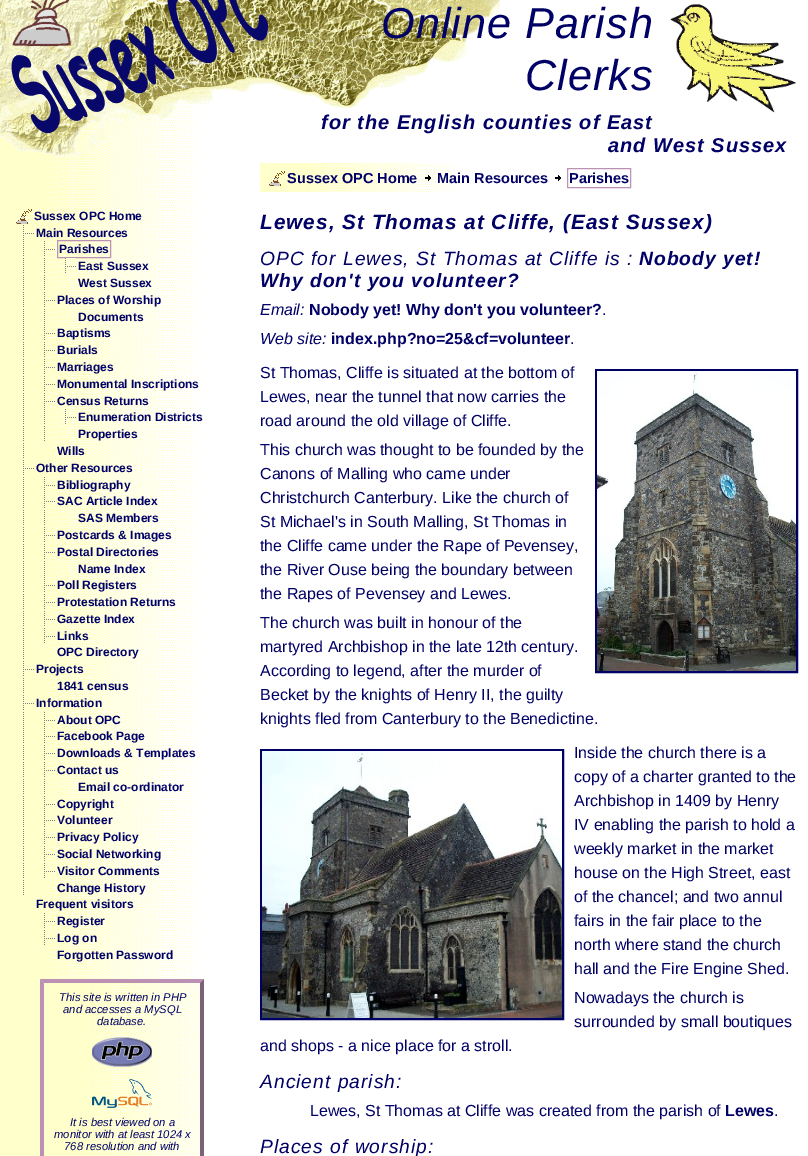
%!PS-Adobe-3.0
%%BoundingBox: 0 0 808 1156
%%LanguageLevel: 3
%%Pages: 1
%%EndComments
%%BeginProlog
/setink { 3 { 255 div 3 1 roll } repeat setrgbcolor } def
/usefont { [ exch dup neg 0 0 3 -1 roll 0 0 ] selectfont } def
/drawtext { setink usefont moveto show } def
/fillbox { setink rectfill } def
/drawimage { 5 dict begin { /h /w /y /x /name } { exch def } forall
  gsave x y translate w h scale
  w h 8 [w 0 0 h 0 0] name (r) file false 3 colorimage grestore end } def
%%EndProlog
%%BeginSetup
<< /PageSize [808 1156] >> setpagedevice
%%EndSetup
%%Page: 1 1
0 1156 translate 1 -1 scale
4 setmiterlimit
0 0 808 1156 255 255 255 fillbox
(assets/img1.rgb) 0 0 201 1156 drawimage
(assets/img2.rgb) 0 0 500 159 drawimage
/LiberationSans-Italic 43.25 usefont
0 0 102 setink
381 38 moveto 1 0 (Online Parish) ashow
525 90 moveto 1 0 (Clerks) ashow
(assets/img3.rgb) 670 4 126 109 drawimage
/LiberationSans-BoldItalic 20 usefont
321 129 moveto 1 0 (for the English counties of East) ashow
608 152 moveto 1 0 (and West Sussex) ashow
(assets/img4.rgb) 16 209 16 15 drawimage
(Sussex OPC Home) 34 220 /LiberationSans-Bold 12 0 0 102 drawtext
(assets/img5.rgb) 23 225 11 15 drawimage
(Main Resources) 36 237 /LiberationSans-Bold 12 0 0 102 drawtext
(assets/img6.rgb) 23 241 1 15 drawimage
(assets/img7.rgb) 44 241 11 15 drawimage
188 145 180 setink
57.5 240.5 53 17 rectstroke
(Parishes) 59 253 /LiberationSans-Bold 12 0 0 102 drawtext
(assets/img6.rgb) 23 258 1 15 drawimage
(assets/img6.rgb) 44 258 1 15 drawimage
(assets/img8.rgb) 65 258 11 15 drawimage
(East Sussex) 78 270 /LiberationSans-Bold 12 0 0 102 drawtext
(assets/img6.rgb) 23 275 1 15 drawimage
(assets/img6.rgb) 44 275 1 15 drawimage
(West Sussex) 78 287 /LiberationSans-Bold 12 0 0 102 drawtext
(assets/img6.rgb) 23 292 1 15 drawimage
(assets/img9.rgb) 44 292 11 15 drawimage
(Places of Worship) 57 304 /LiberationSans-Bold 12 0 0 102 drawtext
(assets/img6.rgb) 23 309 1 15 drawimage
(assets/img6.rgb) 44 309 1 15 drawimage
(Documents) 78 321 /LiberationSans-Bold 12 0 0 102 drawtext
(assets/img6.rgb) 23 325 1 15 drawimage
(assets/img10.rgb) 44 325 11 15 drawimage
(Baptisms) 57 337 /LiberationSans-Bold 12 0 0 102 drawtext
(assets/img6.rgb) 23 342 1 15 drawimage
(assets/img9.rgb) 44 342 11 15 drawimage
(Burials) 57 354 /LiberationSans-Bold 12 0 0 102 drawtext
(assets/img6.rgb) 23 359 1 15 drawimage
(assets/img11.rgb) 44 359 11 15 drawimage
(Marriages) 57 371 /LiberationSans-Bold 12 0 0 102 drawtext
(assets/img6.rgb) 23 376 1 15 drawimage
(assets/img7.rgb) 44 376 11 15 drawimage
(Monumental Inscriptions) 57 388 /LiberationSans-Bold 12 0 0 102 drawtext
(assets/img6.rgb) 23 393 1 15 drawimage
(assets/img12.rgb) 44 393 11 15 drawimage
(Census Returns) 57 405 /LiberationSans-Bold 12 0 0 102 drawtext
(assets/img6.rgb) 23 409 1 15 drawimage
(assets/img6.rgb) 44 409 1 15 drawimage
(assets/img13.rgb) 65 409 11 15 drawimage
(Enumeration Districts) 78 421 /LiberationSans-Bold 12 0 0 102 drawtext
(assets/img6.rgb) 23 426 1 15 drawimage
(assets/img6.rgb) 44 426 1 15 drawimage
(Properties) 78 438 /LiberationSans-Bold 12 0 0 102 drawtext
(assets/img6.rgb) 23 443 1 15 drawimage
(Wills) 57 455 /LiberationSans-Bold 12 0 0 102 drawtext
(assets/img5.rgb) 23 460 11 15 drawimage
(Other Resources) 36 472 /LiberationSans-Bold 12 0 0 102 drawtext
(assets/img6.rgb) 23 477 1 15 drawimage
(assets/img9.rgb) 44 477 11 15 drawimage
(Bibliography) 57 489 /LiberationSans-Bold 12 0 0 102 drawtext
(assets/img6.rgb) 23 493 1 15 drawimage
(assets/img12.rgb) 44 493 11 15 drawimage
(SAC Article Index) 57 505 /LiberationSans-Bold 12 0 0 102 drawtext
(assets/img6.rgb) 23 510 1 15 drawimage
(assets/img6.rgb) 44 510 1 15 drawimage
(SAS Members) 78 522 /LiberationSans-Bold 12 0 0 102 drawtext
(assets/img6.rgb) 23 527 1 15 drawimage
(assets/img9.rgb) 44 527 11 15 drawimage
(Postcards & Images) 57 539 /LiberationSans-Bold 12 0 0 102 drawtext
(assets/img6.rgb) 23 544 1 15 drawimage
(assets/img11.rgb) 44 544 11 15 drawimage
(Postal Directories) 57 556 /LiberationSans-Bold 12 0 0 102 drawtext
(assets/img6.rgb) 23 561 1 15 drawimage
(assets/img6.rgb) 44 561 1 15 drawimage
(Name Index) 78 573 /LiberationSans-Bold 12 0 0 102 drawtext
(assets/img6.rgb) 23 577 1 15 drawimage
(assets/img9.rgb) 44 577 11 15 drawimage
(Poll Registers) 57 589 /LiberationSans-Bold 12 0 0 102 drawtext
(assets/img6.rgb) 23 594 1 15 drawimage
(assets/img11.rgb) 44 594 11 15 drawimage
(Protestation Returns) 57 606 /LiberationSans-Bold 12 0 0 102 drawtext
(assets/img6.rgb) 23 611 1 15 drawimage
(assets/img7.rgb) 44 611 11 15 drawimage
(Gazette Index) 57 623 /LiberationSans-Bold 12 0 0 102 drawtext
(assets/img6.rgb) 23 628 1 15 drawimage
(assets/img12.rgb) 44 628 11 15 drawimage
(Links) 57 640 /LiberationSans-Bold 12 0 0 102 drawtext
(assets/img6.rgb) 23 644 1 15 drawimage
(OPC Directory) 57 656 /LiberationSans-Bold 12 0 0 102 drawtext
(assets/img5.rgb) 23 661 11 15 drawimage
(Projects) 36 673 /LiberationSans-Bold 12 0 0 102 drawtext
(assets/img6.rgb) 23 678 1 15 drawimage
(1841 census) 57 690 /LiberationSans-Bold 12 0 0 102 drawtext
(assets/img5.rgb) 23 695 11 15 drawimage
(Information) 36 707 /LiberationSans-Bold 12 0 0 102 drawtext
(assets/img6.rgb) 23 712 1 15 drawimage
(assets/img9.rgb) 44 712 11 15 drawimage
(About OPC) 57 724 /LiberationSans-Bold 12 0 0 102 drawtext
(assets/img6.rgb) 23 728 1 15 drawimage
(assets/img12.rgb) 44 728 11 15 drawimage
(Facebook Page) 57 740 /LiberationSans-Bold 12 0 0 102 drawtext
(assets/img6.rgb) 23 745 1 15 drawimage
(assets/img10.rgb) 44 745 11 15 drawimage
(Downloads & Templates) 57 757 /LiberationSans-Bold 12 0 0 102 drawtext
(assets/img6.rgb) 23 762 1 15 drawimage
(assets/img9.rgb) 44 762 11 15 drawimage
(Contact us) 57 774 /LiberationSans-Bold 12 0 0 102 drawtext
(assets/img6.rgb) 23 779 1 15 drawimage
(assets/img6.rgb) 44 779 1 15 drawimage
(Email co-ordinator) 78 791 /LiberationSans-Bold 12 0 0 102 drawtext
(assets/img6.rgb) 23 796 1 15 drawimage
(assets/img7.rgb) 44 796 11 15 drawimage
(Copyright) 57 808 /LiberationSans-Bold 12 0 0 102 drawtext
(assets/img6.rgb) 23 812 1 15 drawimage
(assets/img9.rgb) 44 812 11 15 drawimage
(Volunteer) 57 824 /LiberationSans-Bold 12 0 0 102 drawtext
(assets/img6.rgb) 23 829 1 15 drawimage
(assets/img11.rgb) 44 829 11 15 drawimage
(Privacy Policy) 57 841 /LiberationSans-Bold 12 0 0 102 drawtext
(assets/img6.rgb) 23 846 1 15 drawimage
(assets/img7.rgb) 44 846 11 15 drawimage
(Social Networking) 57 858 /LiberationSans-Bold 12 0 0 102 drawtext
(assets/img6.rgb) 23 863 1 15 drawimage
(assets/img12.rgb) 44 863 11 15 drawimage
(Visitor Comments) 57 875 /LiberationSans-Bold 12 0 0 102 drawtext
(assets/img6.rgb) 23 880 1 15 drawimage
(Change History) 57 892 /LiberationSans-Bold 12 0 0 102 drawtext
(Frequent visitors) 36 908 /LiberationSans-Bold 12 0 0 102 drawtext
(assets/img12.rgb) 44 913 11 15 drawimage
(Register) 57 925 /LiberationSans-Bold 12 0 0 102 drawtext
(assets/img10.rgb) 44 930 11 15 drawimage
(Log on) 57 942 /LiberationSans-Bold 12 0 0 102 drawtext
(Forgotten Password) 57 959 /LiberationSans-Bold 12 0 0 102 drawtext
(assets/img14.rgb) 51 979 153 177 drawimage
188 145 180 setink
40 979 moveto 204 979 lineto 200 983 lineto 44 983 lineto closepath fill
125 97 120 setink
204 979 moveto 204 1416 lineto 200 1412 lineto 200 983 lineto closepath fill
188 145 180 setink
40 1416 moveto 40 979 lineto 44 983 lineto 44 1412 lineto closepath fill
(This site is written in PHP) 59 1001 /LiberationSans-Italic 11.25 0 0 102 drawtext
(and accesses a MySQL) 63 1013 /LiberationSans-Italic 11.25 0 0 102 drawtext
(database.) 97 1025 /LiberationSans-Italic 11.25 0 0 102 drawtext
(assets/img15.rgb) 92 1037 60 30 drawimage
(assets/img16.rgb) 92 1079 60 29 drawimage
(It is best viewed on a) 70 1126 /LiberationSans-Italic 11.25 0 0 102 drawtext
(monitor with at least 1024 x) 54 1138 /LiberationSans-Italic 11.25 0 0 102 drawtext
(768 resolution and with) 64 1150 /LiberationSans-Italic 11.25 0 0 102 drawtext
(assets/img17.rgb) 260 163 201 29 drawimage
(assets/img4.rgb) 269 171 16 15 drawimage
(Sussex OPC Home) 287 183 /LiberationSans-Bold 14.5 0 0 102 drawtext
(assets/img18.rgb) 425 175 6 6 drawimage
(Main Resources) 437 183 /LiberationSans-Bold 14.5 0 0 102 drawtext
(assets/img19.rgb) 555 175 6 6 drawimage
188 145 180 setink
567.5 168.5 63 19 rectstroke
(Parishes) 569 183 /LiberationSans-Bold 14.5 0 0 102 drawtext
/LiberationSans-BoldItalic 20.8 usefont
260 229 moveto 1 0 (Lewes, St Thomas at Cliffe, \(East Sussex\)) ashow
/LiberationSans-Italic 19.25 usefont
260 265 moveto 1 0 (OPC for Lewes, St Thomas at Cliffe is :) ashow
/LiberationSans-BoldItalic 19.25 usefont
639 265 moveto 1 0 (Nobody yet!) ashow
260 287 moveto 1 0 (Why don't you volunteer?) ashow
(Email:) 260 315 /LiberationSans-Italic 16 0 0 102 drawtext
(Nobody yet! Why don't you volunteer?) 309 315 /LiberationSans-Bold 16 0 0 102 drawtext
(.) 602 315 /LiberationSans-Regular 16 0 0 102 drawtext
(Web site:) 260 344 /LiberationSans-Italic 16 0 0 102 drawtext
(index.php?no=25&cf=volunteer) 331 344 /LiberationSans-Bold 16 0 0 102 drawtext
(.) 570 344 /LiberationSans-Regular 16 0 0 102 drawtext
(St Thomas, Cliffe is situated at the bottom of) 260 378 /LiberationSans-Regular 16 0 0 102 drawtext
(Lewes, near the tunnel that now carries the) 260 402 /LiberationSans-Regular 16 0 0 102 drawtext
(road around the old village of Cliffe.) 260 426 /LiberationSans-Regular 16 0 0 102 drawtext
2 setlinewidth
596 370 201 302 rectstroke
(assets/img20.rgb) 597 371 199 300 drawimage
(This church was thought to be founded by the) 260 455 /LiberationSans-Regular 16 0 0 102 drawtext
(Canons of Malling who came under) 260 479 /LiberationSans-Regular 16 0 0 102 drawtext
(Christchurch Canterbury. Like the church of) 260 503 /LiberationSans-Regular 16 0 0 102 drawtext
(St Michael's in South Malling, St Thomas in) 260 527 /LiberationSans-Regular 16 0 0 102 drawtext
(the Cliffe came under the Rape of Pevensey,) 260 551 /LiberationSans-Regular 16 0 0 102 drawtext
(the River Ouse being the boundary between) 260 575 /LiberationSans-Regular 16 0 0 102 drawtext
(the Rapes of Pevensey and Lewes.) 260 599 /LiberationSans-Regular 16 0 0 102 drawtext
(The church was built in honour of the) 260 628 /LiberationSans-Regular 16 0 0 102 drawtext
(martyred Archbishop in the late 12th century.) 260 652 /LiberationSans-Regular 16 0 0 102 drawtext
(According to legend, after the murder of) 260 676 /LiberationSans-Regular 16 0 0 102 drawtext
(Becket by the knights of Henry II, the guilty) 260 700 /LiberationSans-Regular 16 0 0 102 drawtext
(knights fled from Canterbury to the Benedictine.) 260 724 /LiberationSans-Regular 16 0 0 102 drawtext
261 750 302 269 rectstroke
(assets/img21.rgb) 262 751 300 267 drawimage
(Inside the church there is a) 574 758 /LiberationSans-Regular 16 0 0 102 drawtext
(copy of a charter granted to the) 574 782 /LiberationSans-Regular 16 0 0 102 drawtext
(Archbishop in 1409 by Henry) 574 806 /LiberationSans-Regular 16 0 0 102 drawtext
(IV enabling the parish to hold a) 574 830 /LiberationSans-Regular 16 0 0 102 drawtext
(weekly market in the market) 574 854 /LiberationSans-Regular 16 0 0 102 drawtext
(house on the High Street, east) 574 878 /LiberationSans-Regular 16 0 0 102 drawtext
(of the chancel; and two annul) 574 902 /LiberationSans-Regular 16 0 0 102 drawtext
(fairs in the fair place to the) 574 926 /LiberationSans-Regular 16 0 0 102 drawtext
(north where stand the church) 574 950 /LiberationSans-Regular 16 0 0 102 drawtext
(hall and the Fire Engine Shed.) 574 974 /LiberationSans-Regular 16 0 0 102 drawtext
(Nowadays the church is) 574 1003 /LiberationSans-Regular 16 0 0 102 drawtext
(surrounded by small boutiques) 574 1027 /LiberationSans-Regular 16 0 0 102 drawtext
(and shops - a nice place for a stroll.) 260 1051 /LiberationSans-Regular 16 0 0 102 drawtext
/LiberationSans-Italic 19.25 usefont
260 1088 moveto 1 0 (Ancient parish:) ashow
(Lewes, St Thomas at Cliffe was created from the parish of) 310 1116 /LiberationSans-Regular 16 0 0 102 drawtext
(Lewes) 725 1116 /LiberationSans-Bold 16 0 0 102 drawtext
(.) 774 1116 /LiberationSans-Regular 16 0 0 102 drawtext
/LiberationSans-Italic 19.25 usefont
260 1153 moveto 1 0 (Places of worship:) ashow
showpage
%%EOF
